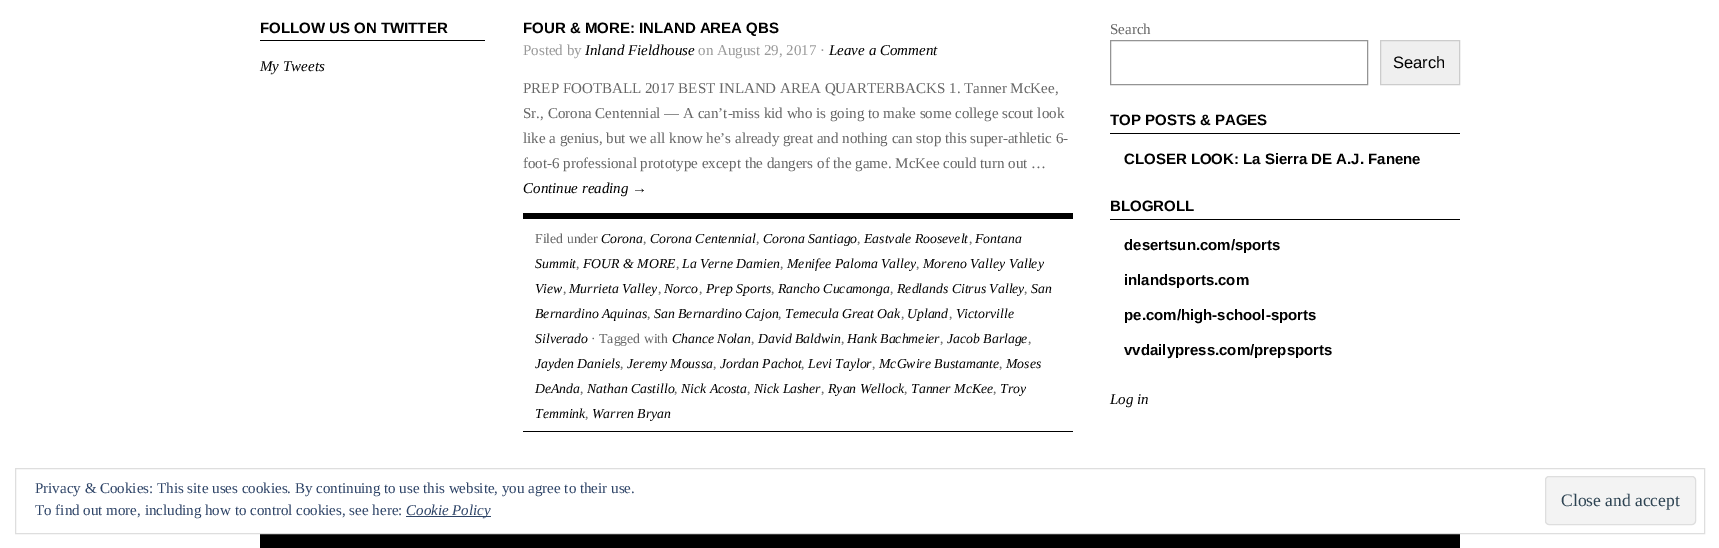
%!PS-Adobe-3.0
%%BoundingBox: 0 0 1719 548
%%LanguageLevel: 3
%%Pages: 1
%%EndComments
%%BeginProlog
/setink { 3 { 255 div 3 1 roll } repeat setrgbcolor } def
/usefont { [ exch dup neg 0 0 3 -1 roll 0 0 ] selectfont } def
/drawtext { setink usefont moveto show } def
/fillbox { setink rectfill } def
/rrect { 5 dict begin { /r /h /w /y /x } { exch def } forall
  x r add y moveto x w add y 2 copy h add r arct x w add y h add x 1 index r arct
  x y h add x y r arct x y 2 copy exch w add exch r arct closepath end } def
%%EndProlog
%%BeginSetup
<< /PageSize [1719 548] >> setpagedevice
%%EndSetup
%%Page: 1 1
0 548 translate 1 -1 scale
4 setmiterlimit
0 0 1719 548 255 255 255 fillbox
260 40 225 1 0 0 0 fillbox
(FOLLOW US ON TWITTER) 260 33 /LiberationSans-Bold 15 0 0 0 drawtext
(My Tweets) 260 71 /LiberationSerif-Italic 15 0 0 0 drawtext
(FOUR & MORE: INLAND AREA QBS) 523 33 /LiberationSans-Bold 15 0 0 0 drawtext
(Posted by) 523 55 /LiberationSerif-Regular 15 153 153 153 drawtext
(Inland Fieldhouse) 585 55 /LiberationSerif-Italic 15 0 0 0 drawtext
(on August 29, 2017 ·) 698 55 /LiberationSerif-Regular 15 153 153 153 drawtext
(Leave a Comment) 829 55 /LiberationSerif-Italic 15 0 0 0 drawtext
(PREP FOOTBALL 2017 BEST INLAND AREA QUARTERBACKS 1. Tanner McKee,) 523 93 /LiberationSerif-Regular 15 102 102 102 drawtext
(Sr., Corona Centennial — A can’t-miss kid who is going to make some college scout look) 523 118 /LiberationSerif-Regular 15 102 102 102 drawtext
(like a genius, but we all know he’s already great and nothing can stop this super-athletic 6-) 523 143 /LiberationSerif-Regular 15 102 102 102 drawtext
(foot-6 professional prototype except the dangers of the game. McKee could turn out …) 523 168 /LiberationSerif-Regular 15 102 102 102 drawtext
(Continue reading →) 523 193 /LiberationSerif-Italic 15 0 0 0 drawtext
523 213 550 6 0 0 0 fillbox
523 431 550 1 0 0 0 fillbox
(Filed under) 535 243 /LiberationSerif-Regular 13.75 102 102 102 drawtext
(Corona) 601 243 /LiberationSerif-Italic 13.75 0 0 0 drawtext
(,) 643 243 /LiberationSerif-Regular 13.75 102 102 102 drawtext
(Corona Centennial) 650 243 /LiberationSerif-Italic 13.75 0 0 0 drawtext
(,) 756 243 /LiberationSerif-Regular 13.75 102 102 102 drawtext
(Corona Santiago) 763 243 /LiberationSerif-Italic 13.75 0 0 0 drawtext
(,) 857 243 /LiberationSerif-Regular 13.75 102 102 102 drawtext
(Eastvale Roosevelt) 864 243 /LiberationSerif-Italic 13.75 0 0 0 drawtext
(,) 969 243 /LiberationSerif-Regular 13.75 102 102 102 drawtext
(Fontana) 975 243 /LiberationSerif-Italic 13.75 0 0 0 drawtext
(Summit) 535 268 /LiberationSerif-Italic 13.75 0 0 0 drawtext
(,) 576 268 /LiberationSerif-Regular 13.75 102 102 102 drawtext
(FOUR & MORE) 583 268 /LiberationSerif-Italic 13.75 0 0 0 drawtext
(,) 676 268 /LiberationSerif-Regular 13.75 102 102 102 drawtext
(La Verne Damien) 682 268 /LiberationSerif-Italic 13.75 0 0 0 drawtext
(,) 780 268 /LiberationSerif-Regular 13.75 102 102 102 drawtext
(Menifee Paloma Valley) 787 268 /LiberationSerif-Italic 13.75 0 0 0 drawtext
(,) 916 268 /LiberationSerif-Regular 13.75 102 102 102 drawtext
(Moreno Valley Valley) 923 268 /LiberationSerif-Italic 13.75 0 0 0 drawtext
(View) 535 293 /LiberationSerif-Italic 13.75 0 0 0 drawtext
(,) 563 293 /LiberationSerif-Regular 13.75 102 102 102 drawtext
(Murrieta Valley) 569 293 /LiberationSerif-Italic 13.75 0 0 0 drawtext
(,) 658 293 /LiberationSerif-Regular 13.75 102 102 102 drawtext
(Norco) 664 293 /LiberationSerif-Italic 13.75 0 0 0 drawtext
(,) 699 293 /LiberationSerif-Regular 13.75 102 102 102 drawtext
(Prep Sports) 706 293 /LiberationSerif-Italic 13.75 0 0 0 drawtext
(,) 771 293 /LiberationSerif-Regular 13.75 102 102 102 drawtext
(Rancho Cucamonga) 778 293 /LiberationSerif-Italic 13.75 0 0 0 drawtext
(,) 890 293 /LiberationSerif-Regular 13.75 102 102 102 drawtext
(Redlands Citrus Valley) 897 293 /LiberationSerif-Italic 13.75 0 0 0 drawtext
(,) 1024 293 /LiberationSerif-Regular 13.75 102 102 102 drawtext
(San) 1031 293 /LiberationSerif-Italic 13.75 0 0 0 drawtext
(Bernardino Aquinas) 535 318 /LiberationSerif-Italic 13.75 0 0 0 drawtext
(,) 647 318 /LiberationSerif-Regular 13.75 102 102 102 drawtext
(San Bernardino Cajon) 654 318 /LiberationSerif-Italic 13.75 0 0 0 drawtext
(,) 778 318 /LiberationSerif-Regular 13.75 102 102 102 drawtext
(Temecula Great Oak) 785 318 /LiberationSerif-Italic 13.75 0 0 0 drawtext
(,) 901 318 /LiberationSerif-Regular 13.75 102 102 102 drawtext
(Upland) 907 318 /LiberationSerif-Italic 13.75 0 0 0 drawtext
(,) 949 318 /LiberationSerif-Regular 13.75 102 102 102 drawtext
(Victorville) 956 318 /LiberationSerif-Italic 13.75 0 0 0 drawtext
(Silverado) 535 343 /LiberationSerif-Italic 13.75 0 0 0 drawtext
(· Tagged with) 591 343 /LiberationSerif-Regular 13.75 102 102 102 drawtext
(Chance Nolan) 672 343 /LiberationSerif-Italic 13.75 0 0 0 drawtext
(,) 751 343 /LiberationSerif-Regular 13.75 102 102 102 drawtext
(David Baldwin) 758 343 /LiberationSerif-Italic 13.75 0 0 0 drawtext
(,) 841 343 /LiberationSerif-Regular 13.75 102 102 102 drawtext
(Hank Bachmeier) 847 343 /LiberationSerif-Italic 13.75 0 0 0 drawtext
(,) 940 343 /LiberationSerif-Regular 13.75 102 102 102 drawtext
(Jacob Barlage) 947 343 /LiberationSerif-Italic 13.75 0 0 0 drawtext
(,) 1028 343 /LiberationSerif-Regular 13.75 102 102 102 drawtext
(Jayden Daniels) 535 368 /LiberationSerif-Italic 13.75 0 0 0 drawtext
(,) 620 368 /LiberationSerif-Regular 13.75 102 102 102 drawtext
(Jeremy Moussa) 627 368 /LiberationSerif-Italic 13.75 0 0 0 drawtext
(,) 713 368 /LiberationSerif-Regular 13.75 102 102 102 drawtext
(Jordan Pachot) 720 368 /LiberationSerif-Italic 13.75 0 0 0 drawtext
(,) 801 368 /LiberationSerif-Regular 13.75 102 102 102 drawtext
(Levi Taylor) 808 368 /LiberationSerif-Italic 13.75 0 0 0 drawtext
(,) 872 368 /LiberationSerif-Regular 13.75 102 102 102 drawtext
(McGwire Bustamante) 879 368 /LiberationSerif-Italic 13.75 0 0 0 drawtext
(,) 999 368 /LiberationSerif-Regular 13.75 102 102 102 drawtext
(Moses) 1006 368 /LiberationSerif-Italic 13.75 0 0 0 drawtext
(DeAnda) 535 393 /LiberationSerif-Italic 13.75 0 0 0 drawtext
(,) 580 393 /LiberationSerif-Regular 13.75 102 102 102 drawtext
(Nathan Castillo) 587 393 /LiberationSerif-Italic 13.75 0 0 0 drawtext
(,) 674 393 /LiberationSerif-Regular 13.75 102 102 102 drawtext
(Nick Acosta) 681 393 /LiberationSerif-Italic 13.75 0 0 0 drawtext
(,) 747 393 /LiberationSerif-Regular 13.75 102 102 102 drawtext
(Nick Lasher) 754 393 /LiberationSerif-Italic 13.75 0 0 0 drawtext
(,) 821 393 /LiberationSerif-Regular 13.75 102 102 102 drawtext
(Ryan Wellock) 828 393 /LiberationSerif-Italic 13.75 0 0 0 drawtext
(,) 904 393 /LiberationSerif-Regular 13.75 102 102 102 drawtext
(Tanner McKee) 911 393 /LiberationSerif-Italic 13.75 0 0 0 drawtext
(,) 993 393 /LiberationSerif-Regular 13.75 102 102 102 drawtext
(Troy) 1000 393 /LiberationSerif-Italic 13.75 0 0 0 drawtext
(Temmink) 535 418 /LiberationSerif-Italic 13.75 0 0 0 drawtext
(,) 585 418 /LiberationSerif-Regular 13.75 102 102 102 drawtext
(Warren Bryan) 592 418 /LiberationSerif-Italic 13.75 0 0 0 drawtext
(Search) 1110 34 /LiberationSerif-Regular 15 102 102 102 drawtext
148 148 148 setink
1110.5 40.5 257 44 rectstroke
239 239 239 setink
1380.5 40.5 moveto 1459.5 40.5 lineto 1459.5 84.5 lineto 1380.5 84.5 lineto closepath gsave fill grestore
204 204 204 setink
stroke
(Search) 1393 68 /LiberationSans-Regular 16.5 0 0 0 drawtext
1110 133 350 1 0 0 0 fillbox
(TOP POSTS & PAGES) 1110 125 /LiberationSans-Bold 15 0 0 0 drawtext
(CLOSER LOOK: La Sierra DE A.J. Fanene) 1124 164 /LiberationSans-Bold 15 0 0 0 drawtext
1110 219 350 1 0 0 0 fillbox
(BLOGROLL) 1110 211 /LiberationSans-Bold 15 0 0 0 drawtext
(desertsun.com/sports) 1124 250 /LiberationSans-Bold 15 0 0 0 drawtext
(inlandsports.com) 1124 285 /LiberationSans-Bold 15 0 0 0 drawtext
(pe.com/high-school-sports) 1124 320 /LiberationSans-Bold 15 0 0 0 drawtext
(vvdailypress.com/prepsports) 1124 355 /LiberationSans-Bold 15 0 0 0 drawtext
(Log in) 1110 404 /LiberationSerif-Italic 15 0 0 0 drawtext
260 534 1200 14 0 0 0 fillbox
222 222 222 setink
15.5 468.5 1689 65 rectstroke
(Privacy & Cookies: This site uses cookies. By continuing to use this website, you agree to their use.) 35 493 /LiberationSerif-Regular 15 46 68 103 drawtext
243 243 243 setink
1545.5 476.5 150 48 3.5 rrect gsave fill grestore
222 222 222 setink
stroke
(Close and accept) 1561 506 /LiberationSerif-Regular 17.5 46 68 83 drawtext
(To find out more, including how to control cookies, see here:) 35 515 /LiberationSerif-Regular 15 46 68 103 drawtext
406 516 85 1 46 68 103 fillbox
(Cookie Policy) 406 515 /LiberationSerif-Italic 15 46 68 103 drawtext
showpage
%%EOF
